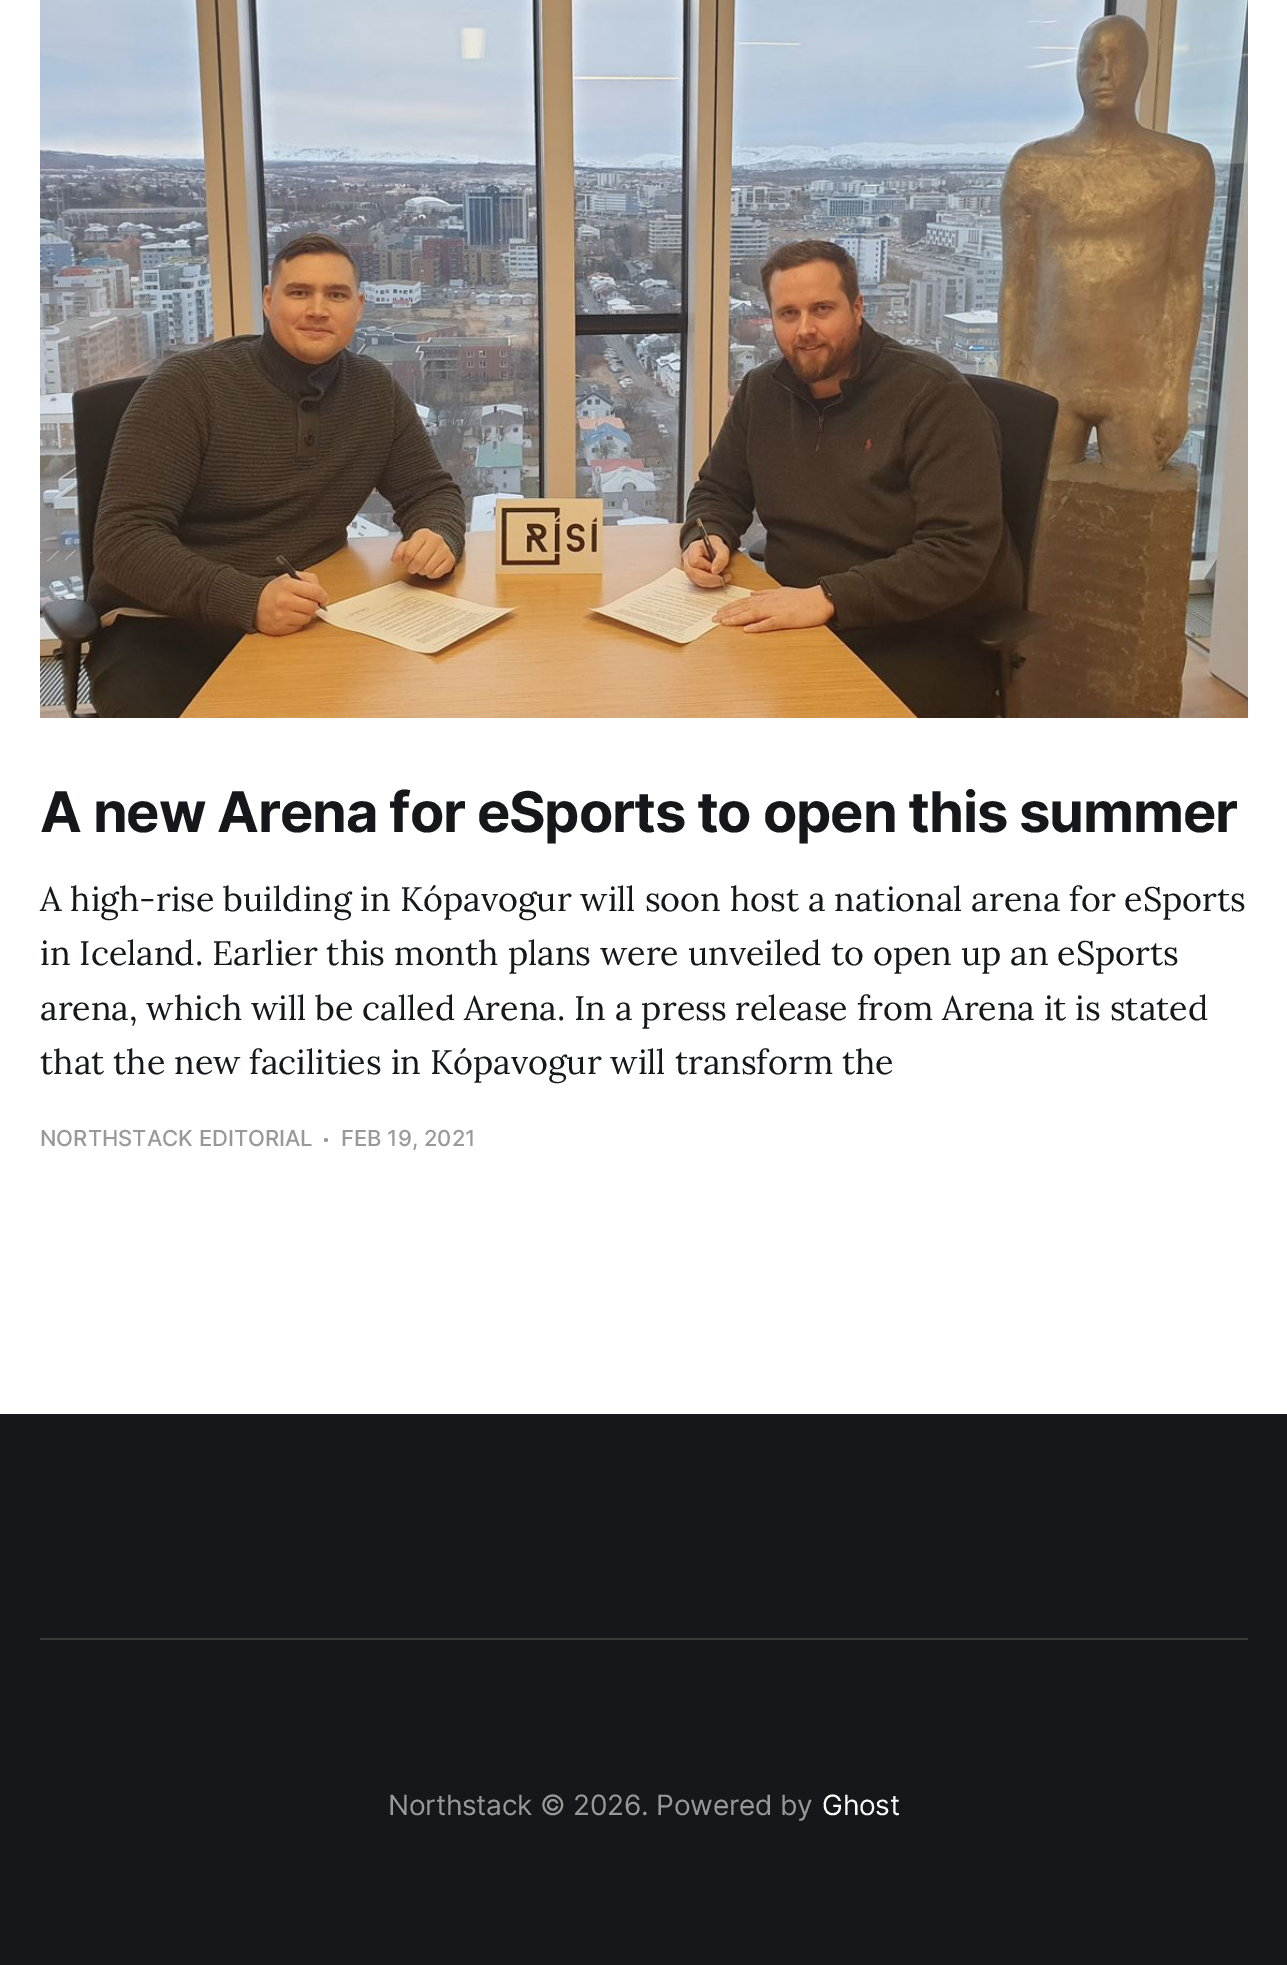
%!PS-Adobe-3.0
%%BoundingBox: 0 0 1287 1965
%%LanguageLevel: 3
%%Pages: 1
%%EndComments
%%BeginProlog
/setink { 3 { 255 div 3 1 roll } repeat setrgbcolor } def
/usefont { [ exch dup neg 0 0 3 -1 roll 0 0 ] selectfont } def
/drawtext { setink usefont moveto show } def
/fillbox { setink rectfill } def
/disc { newpath 0 360 arc closepath } def
/drawimage { 5 dict begin { /h /w /y /x /name } { exch def } forall
  gsave x y translate w h scale
  w h 8 [w 0 0 h 0 0] name (r) file false 3 colorimage grestore end } def
%%EndProlog
%%BeginSetup
<< /PageSize [1287 1965] >> setpagedevice
%%EndSetup
%%Page: 1 1
0 1965 translate 1 -1 scale
4 setmiterlimit
0 0 1287 1965 255 255 255 fillbox
(assets/img1.rgb) 40 0 1208 718 drawimage
/Inter-Bold 56 usefont
21 23 26 setink
40 832 moveto -1.1 0 (A new Arena for eSports to open this summer) ashow
(A high-rise building in Kópavogur will soon host a national arena for eSports) 40 911 /Lora-Regular 34 21 23 26 drawtext
(in Iceland. Earlier this month plans were unveiled to open up an eSports) 40 965 /Lora-Regular 34 21 23 26 drawtext
(arena, which will be called Arena. In a press release from Arena it is stated) 40 1020 /Lora-Regular 34 21 23 26 drawtext
(that the new facilities in Kópavogur will transform the) 40 1074 /Lora-Regular 34 21 23 26 drawtext
(NORTHSTACK EDITORIAL) 40 1146 /Inter-Medium 22 153 153 153 drawtext
326 1140 2 disc fill
(FEB 19, 2021) 341 1146 /Inter-Medium 22 153 153 153 drawtext
0 1414 1287 551 21 23 26 fillbox
40 1638 1208 2 56 58 60 fillbox
/Inter-Regular 28 usefont
153 153 153 setink
388 1815 moveto -0.2 0 (Northstack © 2026. Powered by) ashow
255 255 255 setink
822 1815 moveto -0.2 0 (Ghost) ashow
showpage
%%EOF
